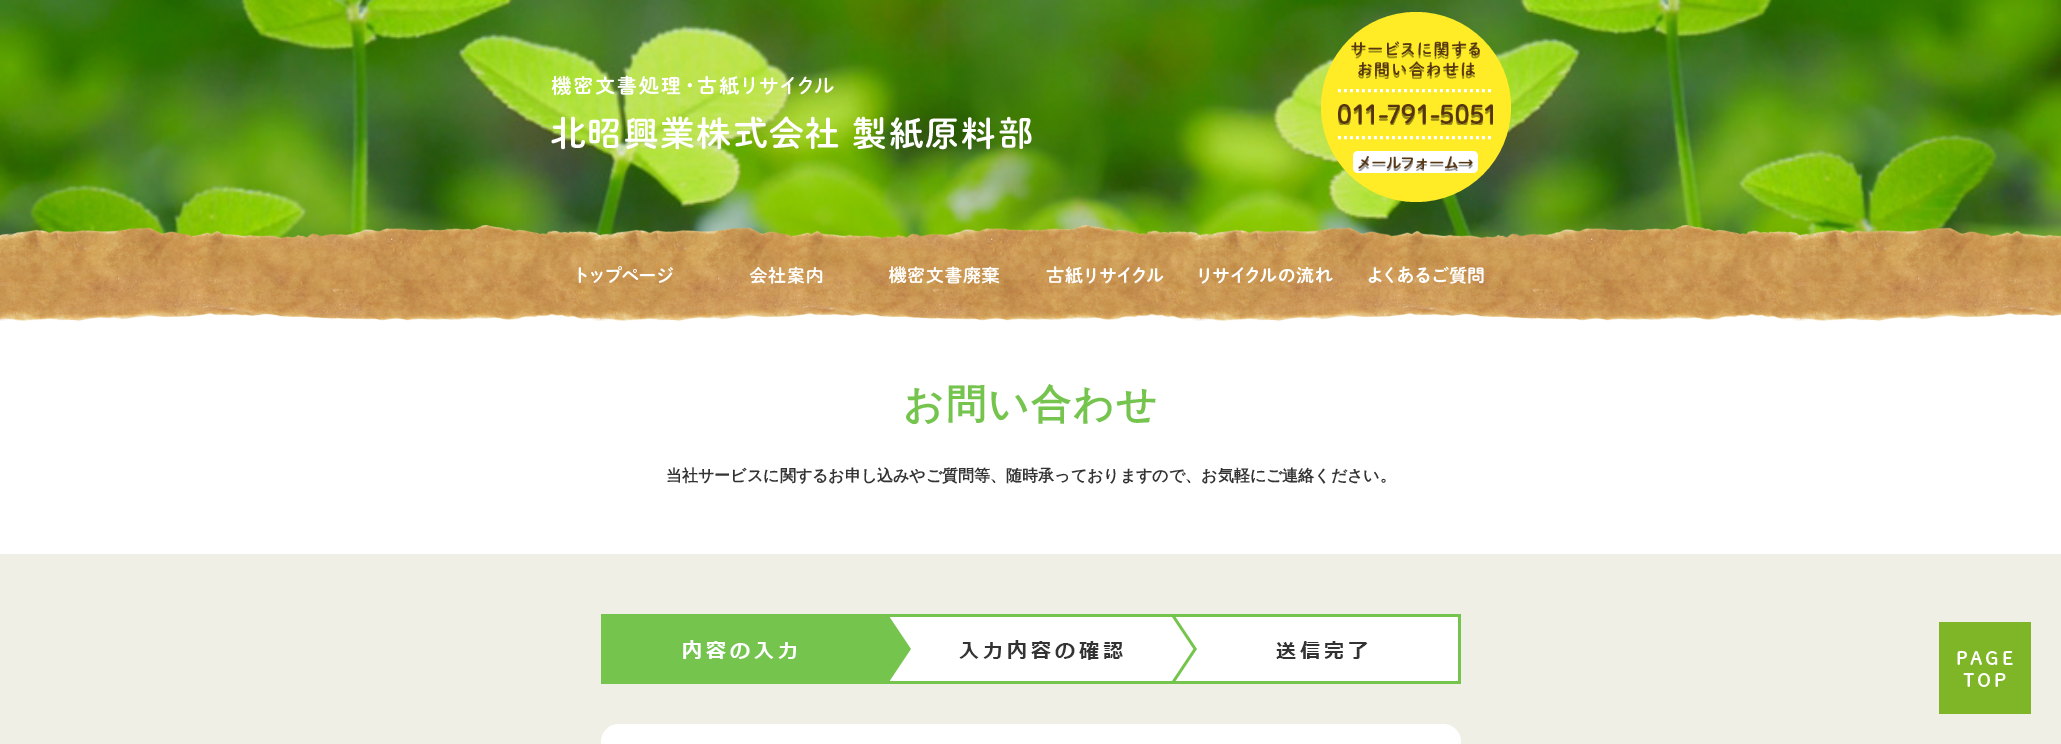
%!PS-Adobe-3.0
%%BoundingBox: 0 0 2061 744
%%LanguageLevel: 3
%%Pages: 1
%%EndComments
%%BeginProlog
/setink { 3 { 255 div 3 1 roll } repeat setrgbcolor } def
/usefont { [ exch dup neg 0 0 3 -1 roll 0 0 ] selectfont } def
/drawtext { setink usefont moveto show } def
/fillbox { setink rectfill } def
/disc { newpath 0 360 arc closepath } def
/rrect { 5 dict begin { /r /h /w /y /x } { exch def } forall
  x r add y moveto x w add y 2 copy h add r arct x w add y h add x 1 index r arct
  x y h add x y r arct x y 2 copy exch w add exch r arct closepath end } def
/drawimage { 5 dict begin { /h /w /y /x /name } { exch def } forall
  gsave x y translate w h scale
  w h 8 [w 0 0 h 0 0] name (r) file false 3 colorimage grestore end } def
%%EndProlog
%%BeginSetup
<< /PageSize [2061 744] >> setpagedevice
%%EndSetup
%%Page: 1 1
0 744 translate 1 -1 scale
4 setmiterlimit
0 0 2061 744 255 255 255 fillbox
(assets/img1.rgb) 0 0 2061 239 drawimage
(assets/img2.rgb) 551 75 283 21 drawimage
(assets/img3.rgb) 551 116 481 34 drawimage
255 235 38 setink
1416 107 95 disc fill
(assets/img4.rgb) 1351 41 129 38 drawimage
255 255 255 setink
3 setlinewidth
[3 3] 0 setdash
1338 90.5 moveto 1493 90.5 lineto stroke
1338 137.5 moveto 1493 137.5 lineto stroke
(assets/img5.rgb) 1338 104 155 21 drawimage
1353 151 125 22 5 rrect fill
(assets/img6.rgb) 1358 156 115 15 drawimage
(assets/img7.rgb) 0 225 2061 96 drawimage
(assets/img8.rgb) 578 266 95 17 drawimage
(assets/img9.rgb) 749 266 74 18 drawimage
(assets/img10.rgb) 888 266 112 18 drawimage
(assets/img11.rgb) 1046 266 118 18 drawimage
(assets/img12.rgb) 1199 266 134 18 drawimage
(assets/img13.rgb) 1368 266 116 18 drawimage
/WenQuanYiZenHei-Bold 40 usefont
117 196 78 setink
903 418 moveto 2 0 (お問い合わせ) ashow
(当社サービスに関するお申し込みやご質問等、随時承っておりますので、お気軽にご連絡ください。) 666 481 /WenQuanYiZenHei-Bold 16 51 51 51 drawtext
0 554 2061 190 240 239 229 fillbox
(assets/img14.rgb) 601 614 860 70 drawimage
255 255 255 setink
601 724 860 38 18 rrect fill
(assets/img15.rgb) 1939 622 92 92 drawimage
showpage
%%EOF
